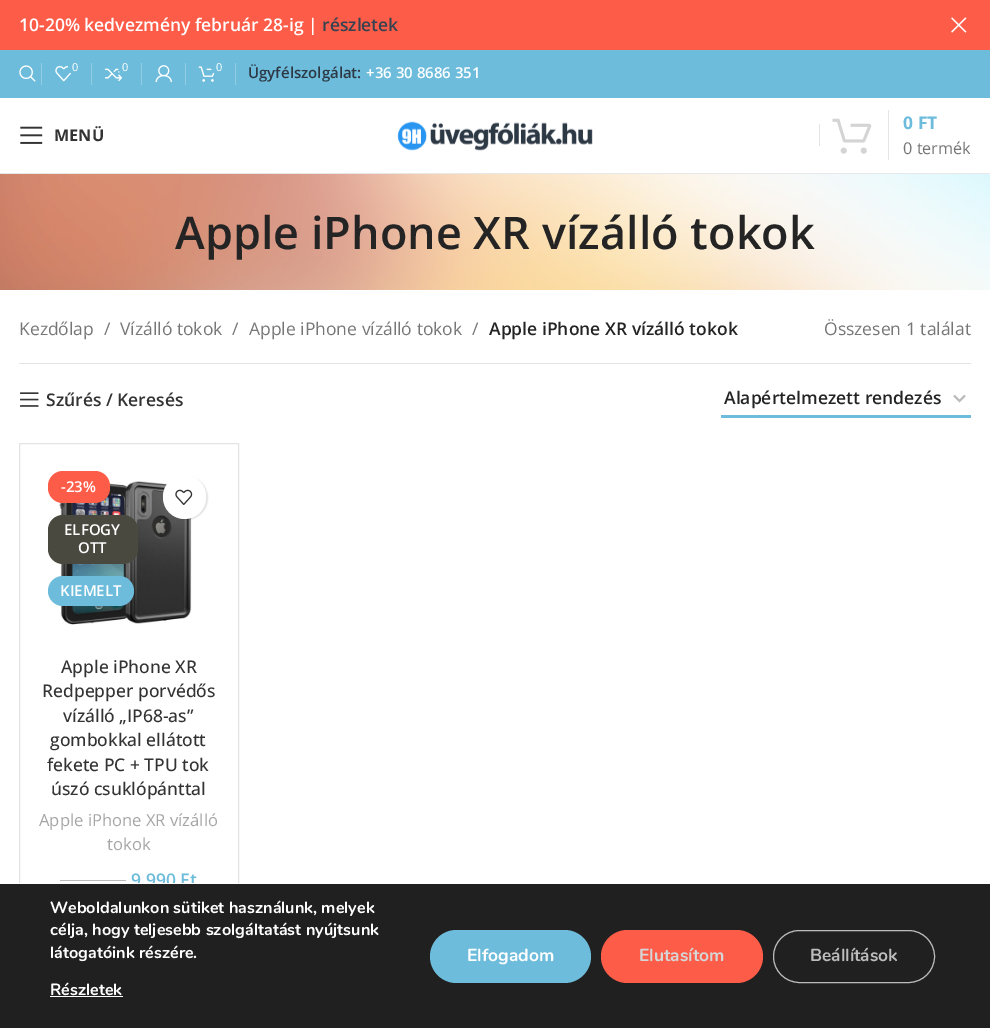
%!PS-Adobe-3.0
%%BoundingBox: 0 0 990 1028
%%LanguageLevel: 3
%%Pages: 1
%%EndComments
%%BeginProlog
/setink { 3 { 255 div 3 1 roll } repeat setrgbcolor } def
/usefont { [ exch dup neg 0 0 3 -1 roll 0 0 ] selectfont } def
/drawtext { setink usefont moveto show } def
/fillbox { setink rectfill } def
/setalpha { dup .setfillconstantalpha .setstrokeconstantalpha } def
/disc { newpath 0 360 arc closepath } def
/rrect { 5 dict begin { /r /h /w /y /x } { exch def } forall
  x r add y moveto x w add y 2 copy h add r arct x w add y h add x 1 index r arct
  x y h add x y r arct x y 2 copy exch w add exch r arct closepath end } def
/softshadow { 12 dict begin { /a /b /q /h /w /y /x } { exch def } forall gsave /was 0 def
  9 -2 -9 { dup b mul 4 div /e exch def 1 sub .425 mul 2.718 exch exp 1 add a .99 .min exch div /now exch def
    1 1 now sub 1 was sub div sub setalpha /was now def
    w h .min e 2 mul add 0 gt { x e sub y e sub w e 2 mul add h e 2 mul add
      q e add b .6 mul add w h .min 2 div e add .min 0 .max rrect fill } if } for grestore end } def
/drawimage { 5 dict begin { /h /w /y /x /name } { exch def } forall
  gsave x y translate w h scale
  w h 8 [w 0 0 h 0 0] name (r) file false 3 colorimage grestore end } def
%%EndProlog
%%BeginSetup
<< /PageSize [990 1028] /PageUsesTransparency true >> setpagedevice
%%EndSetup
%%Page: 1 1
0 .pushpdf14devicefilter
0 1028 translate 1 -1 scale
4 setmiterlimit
0 0 990 1028 255 255 255 fillbox
0 0 990 50 253 92 72 fillbox
(10-20% kedvezmény február 28-ig |) 19 31 /OpenSans-SemiBold 17.5 255 255 255 drawtext
(részletek) 322 31 /OpenSans-SemiBold 17.5 53 66 79 drawtext
(assets/img1.rgb) 951 17 16 16 drawimage
0 50 990 48 109 188 219 fillbox
(assets/img2.rgb) 19 65 17 17 drawimage
41 63 1 22 146 205 228 fillbox
(assets/img3.rgb) 55 65 17 17 drawimage
109 188 219 setink
76 67 8 disc fill
(0) 72 71 /OpenSans-Regular 11 255 255 255 drawtext
91 63 1 22 146 205 228 fillbox
(assets/img4.rgb) 105 66 18 16 drawimage
109 188 219 setink
126 67 8 disc fill
(0) 122 71 /OpenSans-Regular 11 255 255 255 drawtext
141 63 1 22 146 205 228 fillbox
(assets/img5.rgb) 155 65 17 18 drawimage
185 63 1 22 146 205 228 fillbox
(assets/img6.rgb) 198 66 17 16 drawimage
109 188 219 setink
211 59 17 16 8 rrect fill
(0) 216 71 /OpenSans-Regular 11 255 255 255 drawtext
235 63 1 22 146 205 228 fillbox
(Ügyfélszolgálat:) 248 78 /OpenSans-SemiBold 15 45 56 69 drawtext
(+36 30 8686 351) 366 78 /OpenSans-SemiBold 15 255 255 255 drawtext
0 173 990 1 232 232 232 fillbox
(assets/img7.rgb) 20 126 23 18 drawimage
(MENÜ) 54 141 /OpenSans-Bold 16.25 51 51 51 drawtext
(assets/img8.rgb) 397 121 196 30 drawimage
819 124 1 22 228 228 228 fillbox
(assets/img9.rgb) 832 118 40 36 drawimage
888 110 1 50 230 230 230 fillbox
(0 FT) 903 129 /OpenSans-Bold 17.5 109 188 219 drawtext
(0 termék) 903 154 /OpenSans-Regular 16.25 118 118 118 drawtext
(assets/img10.rgb) 0 174 990 116 drawimage
(Apple iPhone XR vízálló tokok) 175 249 /OpenSans-SemiBold 45 36 36 36 drawtext
19 363 952 1 228 228 228 fillbox
(Kezdőlap) 19 335 /OpenSans-Regular 17.5 118 118 118 drawtext
(/) 104 335 /OpenSans-Regular 17.5 118 118 118 drawtext
(Vízálló tokok) 120 335 /OpenSans-Regular 17.5 118 118 118 drawtext
(/) 232 335 /OpenSans-Regular 17.5 118 118 118 drawtext
(Apple iPhone vízálló tokok) 249 335 /OpenSans-Regular 17.5 118 118 118 drawtext
(/) 472 335 /OpenSans-Regular 17.5 118 118 118 drawtext
(Apple iPhone XR vízálló tokok) 489 335 /OpenSans-SemiBold 17.5 36 36 36 drawtext
(Összesen 1 találat) 824 335 /OpenSans-Regular 17.5 118 118 118 drawtext
(assets/img11.rgb) 20 392 19 15 drawimage
(Szűrés / Keresés) 46 406 /OpenSans-SemiBold 17.5 51 51 51 drawtext
187 187 187 setink
1.8 setlinewidth
954 395.5 moveto 959.5 401 lineto 965 395.5 lineto stroke
721 415 250 3 109 188 219 fillbox
(Alapértelmezett rendezés) 724 404 /OpenSans-SemiBold 17.5 36 36 36 drawtext
228 228 228 setink
1 setlinewidth
19.5 443.5 219 525 rectstroke
(assets/img12.rgb) 59 480 133 145 drawimage
253 92 72 setink
48 471 62 32 15 rrect fill
(-23%) 61 492 /OpenSans-SemiBold 15 255 255 255 drawtext
73 73 64 setink
48 515 90 49 15 rrect fill
(ELFOGY) 64 535 /OpenSans-SemiBold 15 255 255 255 drawtext
(OTT) 78 553 /OpenSans-SemiBold 15 255 255 255 drawtext
109 188 219 setink
48 576 86 30 15 rrect fill
(KIEMELT) 60 596 /OpenSans-SemiBold 15 255 255 255 drawtext
0 0 0 setink
164 476 44 44 22 0.5 0.1 softshadow
255 255 255 setink
163 475 43 44 21.5 rrect fill
(assets/img13.rgb) 175 489 18 16 drawimage
(Apple iPhone XR) 61 673 /OpenSans-Medium 17.5 51 51 51 drawtext
(Redpepper porvédős) 42 697 /OpenSans-Medium 17.5 51 51 51 drawtext
(vízálló „IP68-as”) 63 722 /OpenSans-Medium 17.5 51 51 51 drawtext
(gombokkal ellátott) 50 746 /OpenSans-Medium 17.5 51 51 51 drawtext
(fekete PC + TPU tok) 47 771 /OpenSans-Medium 17.5 51 51 51 drawtext
(úszó csuklópánttal) 51 795 /OpenSans-Medium 17.5 51 51 51 drawtext
(Apple iPhone XR vízálló) 39 826 /OpenSans-Regular 16.6 165 165 165 drawtext
(tokok) 107 850 /OpenSans-Regular 16.6 165 165 165 drawtext
60 880 66 1 187 187 187 fillbox
(9.990 Ft) 131 886 /OpenSans-SemiBold 17.5 109 188 219 drawtext
0 884 990 144 32 32 32 fillbox
19 883 220 1 255 255 255 fillbox
(Weboldalunkon sütiket használunk, melyek) 50 913 /Nunito-Bold 16.25 255 255 255 drawtext
(célja, hogy teljesebb szolgáltatást nyújtsunk) 50 935 /Nunito-Bold 16.25 255 255 255 drawtext
(látogatóink részére.) 50 958 /Nunito-Bold 16.25 255 255 255 drawtext
(Részletek) 50 995 /Nunito-Bold 16.25 255 255 255 drawtext
50 996 73 1 255 255 255 fillbox
109 188 219 setink
430 930 161 53 26.5 rrect fill
(Elfogadom) 467 961 /Nunito-Bold 17.5 255 255 255 drawtext
253 92 72 setink
601 930 162 53 26.5 rrect fill
(Elutasítom) 639 961 /Nunito-Bold 17.5 214 214 214 drawtext
188 188 188 setink
773.5 930.5 161 52 26 rrect stroke
(Beállítások) 810 961 /Nunito-Bold 17.5 188 188 188 drawtext
.poppdf14devicefilter showpage
%%EOF
